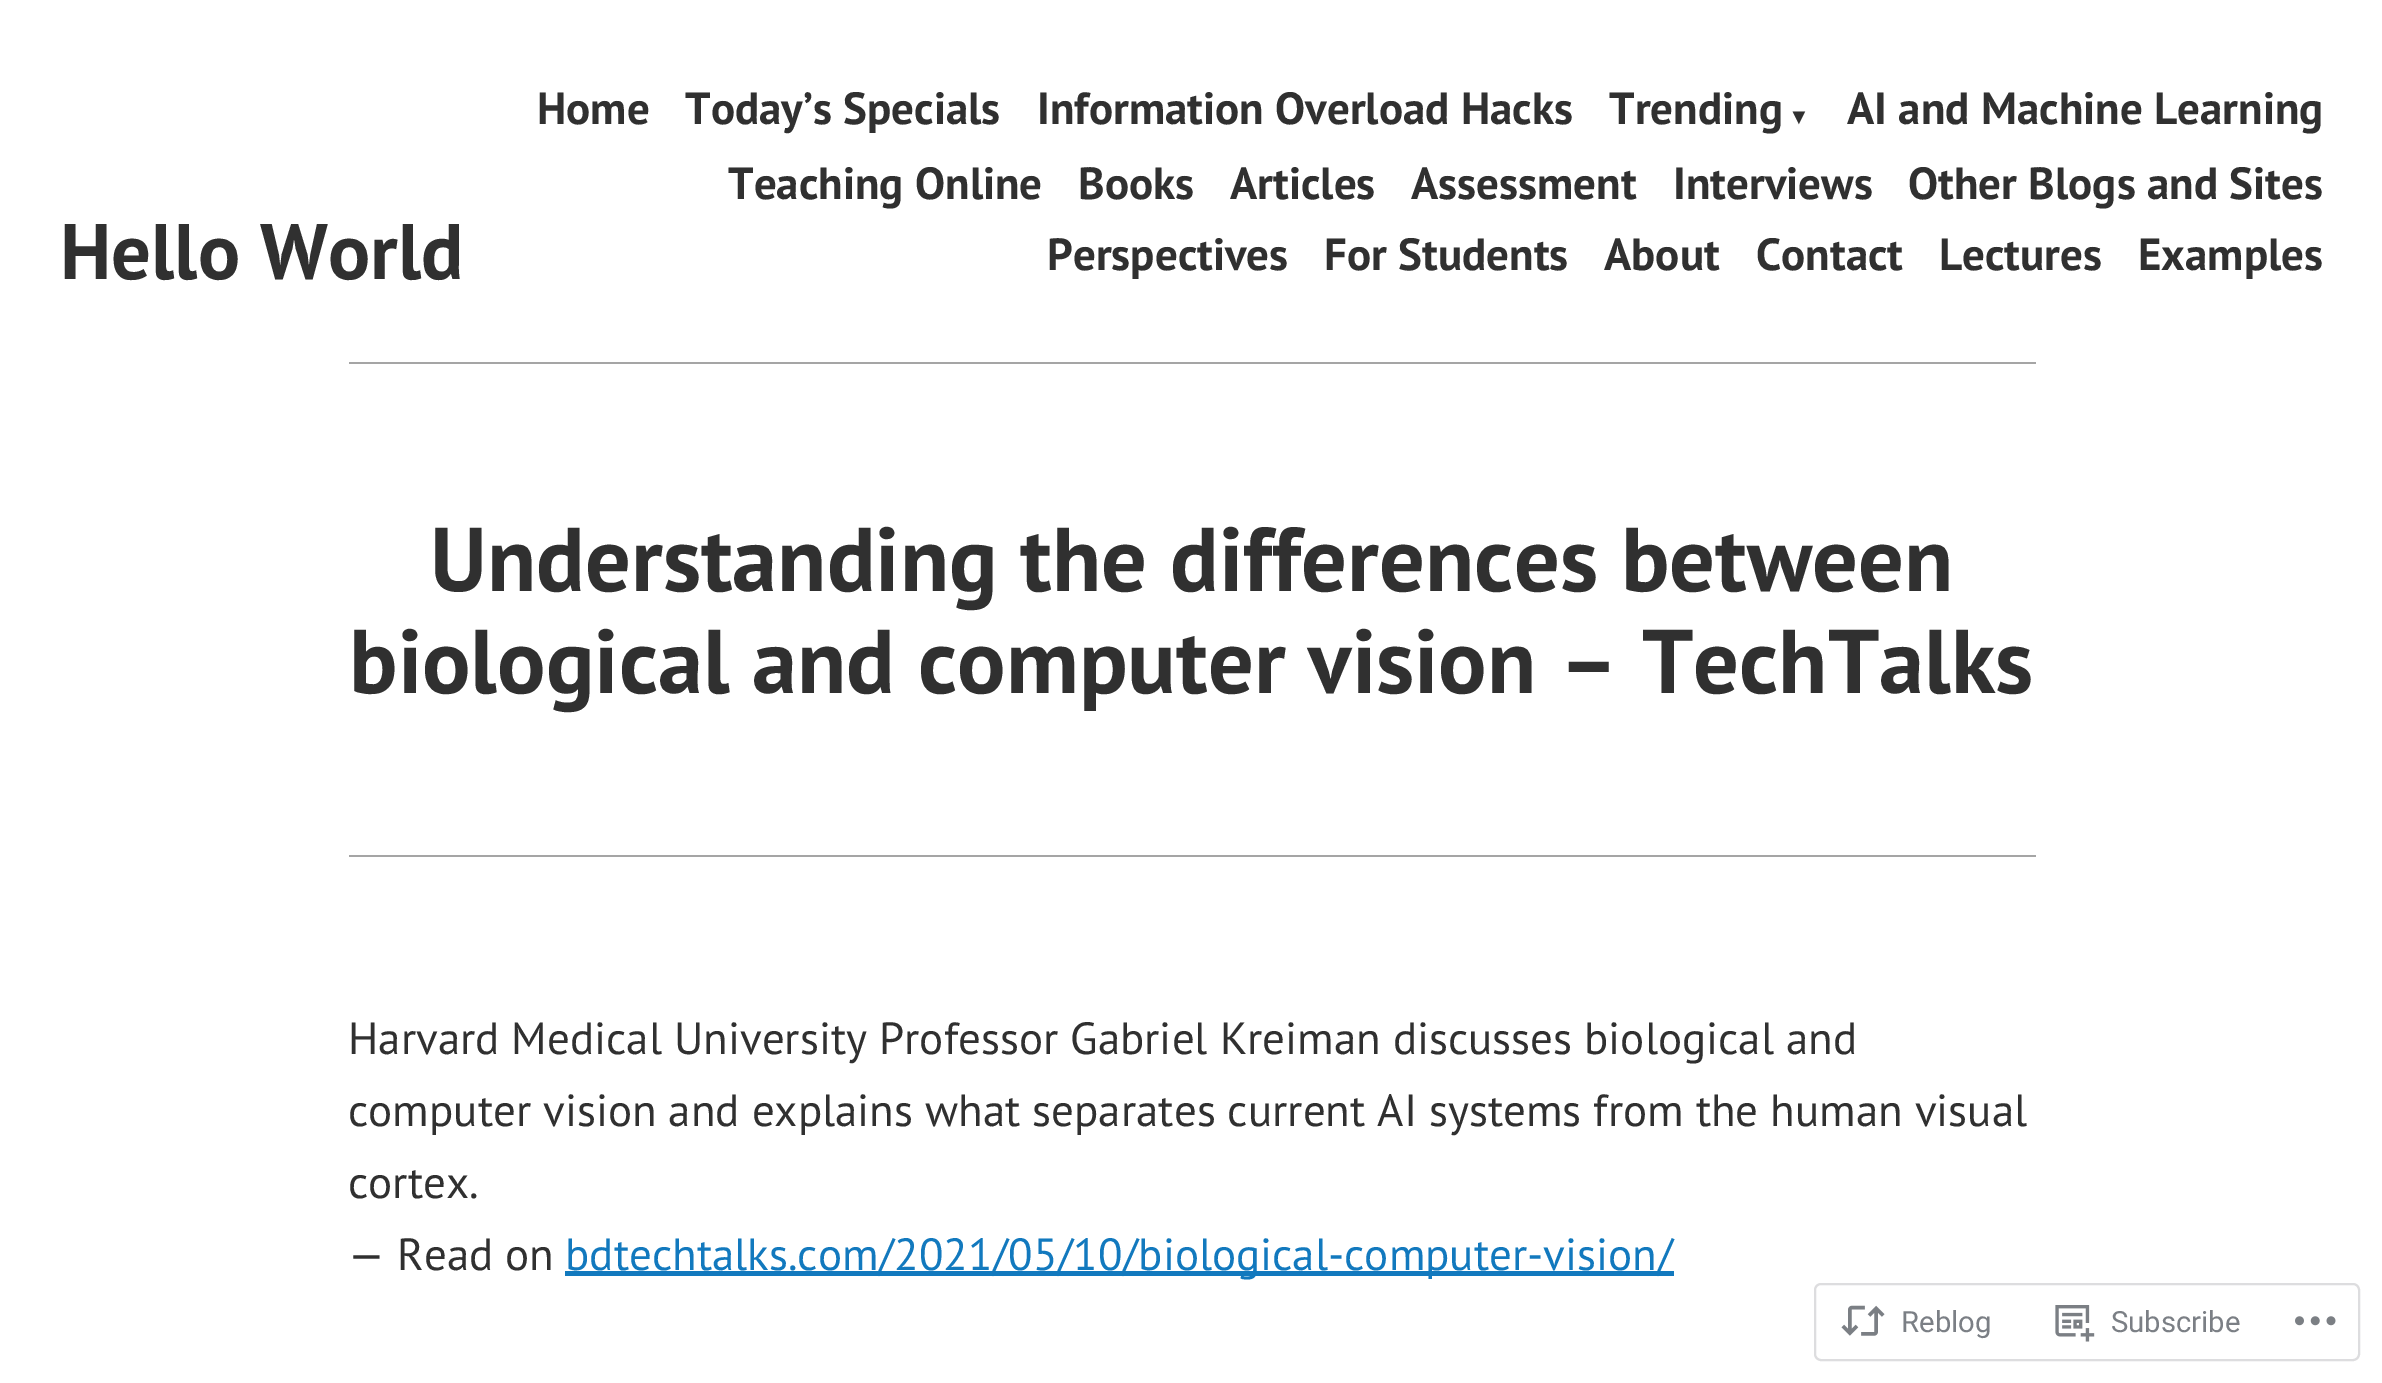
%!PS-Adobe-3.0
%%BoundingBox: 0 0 2382 1383
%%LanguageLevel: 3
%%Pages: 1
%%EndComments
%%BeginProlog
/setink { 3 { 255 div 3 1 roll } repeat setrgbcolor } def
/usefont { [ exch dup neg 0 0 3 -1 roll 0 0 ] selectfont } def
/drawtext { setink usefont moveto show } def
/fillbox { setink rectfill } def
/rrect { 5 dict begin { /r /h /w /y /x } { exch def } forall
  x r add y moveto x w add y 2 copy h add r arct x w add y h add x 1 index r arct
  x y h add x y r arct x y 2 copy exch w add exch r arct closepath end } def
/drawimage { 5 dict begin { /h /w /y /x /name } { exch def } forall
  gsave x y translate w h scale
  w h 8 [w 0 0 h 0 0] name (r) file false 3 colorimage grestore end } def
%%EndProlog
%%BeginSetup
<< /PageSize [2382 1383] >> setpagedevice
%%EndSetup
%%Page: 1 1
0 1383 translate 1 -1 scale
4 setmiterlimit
0 0 2382 1383 255 255 255 fillbox
(Hello World) 60 279 /PTSans-Bold 78.75 48 48 48 drawtext
(Home) 537 124 /PTSans-Bold 45 48 48 48 drawtext
(Today’s Specials) 685 124 /PTSans-Bold 45 48 48 48 drawtext
(Information Overload Hacks) 1037 124 /PTSans-Bold 45 48 48 48 drawtext
(Trending) 1609 124 /PTSans-Bold 45 48 48 48 drawtext
(▼) 1788 124 /LiberationSans-Bold 22 48 48 48 drawtext
(AI and Machine Learning) 1847 124 /PTSans-Bold 45 48 48 48 drawtext
(Teaching Online) 728 199 /PTSans-Bold 45 48 48 48 drawtext
(Books) 1078 199 /PTSans-Bold 45 48 48 48 drawtext
(Articles) 1230 199 /PTSans-Bold 45 48 48 48 drawtext
(Assessment) 1411 199 /PTSans-Bold 45 48 48 48 drawtext
(Interviews) 1673 199 /PTSans-Bold 45 48 48 48 drawtext
(Other Blogs and Sites) 1908 199 /PTSans-Bold 45 48 48 48 drawtext
(Perspectives) 1047 270 /PTSans-Bold 45 48 48 48 drawtext
(For Students) 1324 270 /PTSans-Bold 45 48 48 48 drawtext
(About) 1604 270 /PTSans-Bold 45 48 48 48 drawtext
(Contact) 1756 270 /PTSans-Bold 45 48 48 48 drawtext
(Lectures) 1939 270 /PTSans-Bold 45 48 48 48 drawtext
(Examples) 2138 270 /PTSans-Bold 45 48 48 48 drawtext
349 362 1687 2 165 165 165 fillbox
(Understanding the differences between) 430 591 /PTSans-Bold 90.5 48 48 48 drawtext
(biological and computer vision – TechTalks) 349 693 /PTSans-Bold 90.5 48 48 48 drawtext
349 855 1687 2 165 165 165 fillbox
(Harvard Medical University Professor Gabriel Kreiman discusses biological and) 348 1054 /PTSans-Regular 45 48 48 48 drawtext
(computer vision and explains what separates current AI systems from the human visual) 348 1126 /PTSans-Regular 45 48 48 48 drawtext
(cortex.) 348 1198 /PTSans-Regular 45 48 48 48 drawtext
(— Read on) 348 1270 /PTSans-Regular 45 48 48 48 drawtext
565 1271 1109 5 18 121 190 fillbox
(bdtechtalks.com/2021/05/10/biological-computer-vision/) 565 1270 /PTSans-Regular 45 18 121 190 drawtext
221 221 223 setink
2 setlinewidth
1815 1284 544 76 6 rrect stroke
(assets/img1.rgb) 1841 1305 44 31 drawimage
(Reblog) 1901 1332 /Roboto-Regular 29.25 123 127 133 drawtext
(assets/img2.rgb) 2055 1305 40 37 drawimage
(Subscribe) 2111 1332 /Roboto-Regular 29.25 123 127 133 drawtext
(assets/img3.rgb) 2295 1316 41 10 drawimage
showpage
%%EOF
